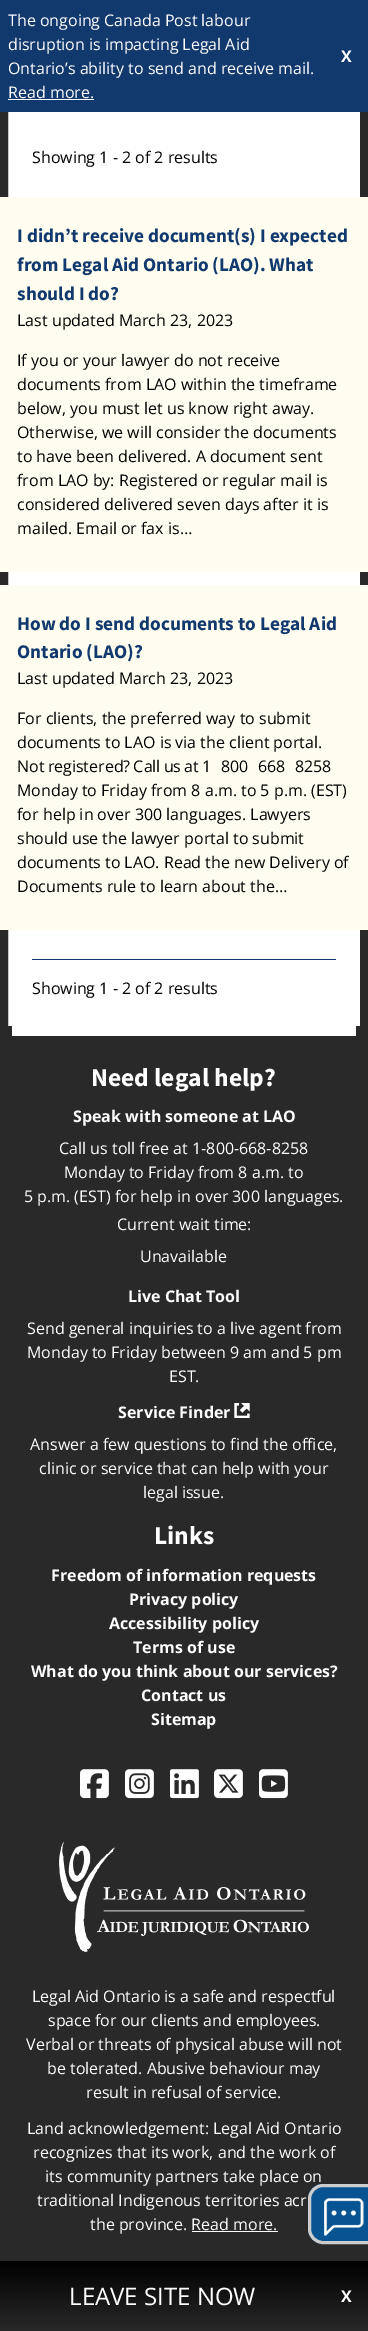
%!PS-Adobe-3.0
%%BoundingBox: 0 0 368 2331
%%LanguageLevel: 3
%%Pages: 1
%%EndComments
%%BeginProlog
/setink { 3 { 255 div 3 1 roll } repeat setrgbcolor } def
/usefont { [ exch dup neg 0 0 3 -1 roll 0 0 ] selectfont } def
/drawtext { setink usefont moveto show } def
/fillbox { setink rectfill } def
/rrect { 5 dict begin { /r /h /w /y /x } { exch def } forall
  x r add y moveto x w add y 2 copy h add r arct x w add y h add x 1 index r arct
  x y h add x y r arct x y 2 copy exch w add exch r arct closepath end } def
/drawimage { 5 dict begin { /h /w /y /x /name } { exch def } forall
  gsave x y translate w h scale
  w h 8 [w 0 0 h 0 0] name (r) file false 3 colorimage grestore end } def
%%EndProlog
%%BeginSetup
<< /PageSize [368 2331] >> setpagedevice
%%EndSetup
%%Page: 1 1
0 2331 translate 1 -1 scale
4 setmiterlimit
0 0 368 2331 255 255 255 fillbox
41 41 41 setink
8 setlinewidth
4 -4 360 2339 rectstroke
0 0 368 112 17 57 110 fillbox
(The ongoing Canada Post labour) 8 26 /OpenSans-Regular 16 255 255 255 drawtext
(disruption is impacting Legal Aid) 8 50 /OpenSans-Regular 16 255 255 255 drawtext
(Ontario’s ability to send and receive mail.) 8 74 /OpenSans-Regular 16 255 255 255 drawtext
(Read more.) 8 98 /OpenSans-Regular 16 255 255 255 drawtext
8 99 86 1 255 255 255 fillbox
(X) 341 62 /OpenSans-Bold 16 255 255 255 drawtext
8 1026 352 1235 41 41 41 fillbox
12 1026 344 10 255 255 255 fillbox
(Showing 1 - 2 of 2 results) 32 163 /OpenSans-Regular 16 0 0 0 drawtext
0 197 368 375 255 253 239 fillbox
(I didn’t receive document\(s\) I expected) 17 242 /SourceSansPro-Bold 19.25 17 57 110 drawtext
(from Legal Aid Ontario \(LAO\). What) 17 271 /SourceSansPro-Bold 19.25 17 57 110 drawtext
(should I do?) 17 300 /SourceSansPro-Bold 19.25 17 57 110 drawtext
(Last updated March 23, 2023) 17 326 /OpenSans-Regular 16 0 0 0 drawtext
(If you or your lawyer do not receive) 17 366 /OpenSans-Regular 16 0 0 0 drawtext
(documents from LAO within the timeframe) 17 390 /OpenSans-Regular 16 0 0 0 drawtext
(below, you must let us know right away.) 17 414 /OpenSans-Regular 16 0 0 0 drawtext
(Otherwise, we will consider the documents) 17 438 /OpenSans-Regular 16 0 0 0 drawtext
(to have been delivered. A document sent) 17 462 /OpenSans-Regular 16 0 0 0 drawtext
(from LAO by: Registered or regular mail is) 17 486 /OpenSans-Regular 16 0 0 0 drawtext
(considered delivered seven days after it is) 17 510 /OpenSans-Regular 16 0 0 0 drawtext
(mailed. Email or fax is…) 17 534 /OpenSans-Regular 16 0 0 0 drawtext
0 585 368 345 255 253 239 fillbox
(How do I send documents to Legal Aid) 17 630 /SourceSansPro-Bold 19.25 17 57 110 drawtext
(Ontario \(LAO\)?) 17 658 /SourceSansPro-Bold 19.25 17 57 110 drawtext
(Last updated March 23, 2023) 17 684 /OpenSans-Regular 16 0 0 0 drawtext
(For clients, the preferred way to submit) 17 724 /OpenSans-Regular 16 0 0 0 drawtext
(documents to LAO is via the client portal.) 17 748 /OpenSans-Regular 16 0 0 0 drawtext
17 772 moveto -1 0 32 (Not registered? Call us at 1‑800‑668‑8258) widthshow
(Monday to Friday from 8 a.m. to 5 p.m. \(EST\)) 17 796 /OpenSans-Regular 16 0 0 0 drawtext
(for help in over 300 languages. Lawyers) 17 820 /OpenSans-Regular 16 0 0 0 drawtext
(should use the lawyer portal to submit) 17 844 /OpenSans-Regular 16 0 0 0 drawtext
(documents to LAO. Read the new Delivery of) 17 868 /OpenSans-Regular 16 0 0 0 drawtext
(Documents rule to learn about the…) 17 892 /OpenSans-Regular 16 0 0 0 drawtext
32 959 304 1 17 57 110 fillbox
(Showing 1 - 2 of 2 results) 32 994 /OpenSans-Regular 16 0 0 0 drawtext
(its community partners take place on) 45 2182 /OpenSans-Regular 16 255 255 255 drawtext
8 83 145 setink
308 2184 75 60 15 rrect fill
(assets/img1.rgb) 308 2184 56 60 drawimage
204 204 204 setink
3 setlinewidth
309.5 2185.5 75 57 13.5 rrect stroke
(Need legal help?) 91 1086 /SourceSansPro-Bold 25.5 255 255 255 drawtext
(Speak with someone at LAO) 73 1122 /OpenSans-Bold 16 255 255 255 drawtext
(Call us toll free at 1-800-668-8258) 59 1154 /OpenSans-Regular 16 255 255 255 drawtext
(Monday to Friday from 8 a.m. to) 64 1178 /OpenSans-Regular 16 255 255 255 drawtext
(5 p.m. \(EST\) for help in over 300 languages.) 24 1202 /OpenSans-Regular 16 255 255 255 drawtext
(Current wait time:) 117 1230 /OpenSans-Regular 16 255 255 255 drawtext
(Unavailable) 140 1262 /OpenSans-Regular 16 255 255 255 drawtext
(Live Chat Tool) 128 1302 /OpenSans-Bold 16 255 255 255 drawtext
(Send general inquiries to a live agent from) 27 1334 /OpenSans-Regular 16 255 255 255 drawtext
(Monday to Friday between 9 am and 5 pm) 27 1358 /OpenSans-Regular 16 255 255 255 drawtext
(EST.) 169 1382 /OpenSans-Regular 16 255 255 255 drawtext
(Service Finder) 118 1418 /OpenSans-Bold 16 255 255 255 drawtext
(assets/img2.rgb) 234 1403 16 15 drawimage
(Answer a few questions to find the office,) 30 1450 /OpenSans-Regular 16 255 255 255 drawtext
(clinic or service that can help with your) 39 1474 /OpenSans-Regular 16 255 255 255 drawtext
(legal issue.) 143 1498 /OpenSans-Regular 16 255 255 255 drawtext
(Links) 154 1544 /SourceSansPro-Bold 25.5 255 255 255 drawtext
(Freedom of information requests) 51 1581 /OpenSans-Bold 16 255 255 255 drawtext
(Privacy policy) 129 1605 /OpenSans-Bold 16 255 255 255 drawtext
(Accessibility policy) 109 1629 /OpenSans-Bold 16 255 255 255 drawtext
(Terms of use) 133 1653 /OpenSans-Bold 16 255 255 255 drawtext
(What do you think about our services?) 31 1677 /OpenSans-Bold 16 255 255 255 drawtext
(Contact us) 141 1701 /OpenSans-Bold 16 255 255 255 drawtext
(Sitemap) 151 1725 /OpenSans-Bold 16 255 255 255 drawtext
(assets/img3.rgb) 80 1769 29 30 drawimage
(assets/img4.rgb) 125 1769 29 30 drawimage
(assets/img5.rgb) 170 1769 29 30 drawimage
(assets/img6.rgb) 214 1769 29 30 drawimage
(assets/img7.rgb) 259 1769 29 30 drawimage
(assets/img8.rgb) 59 1842 250 110 drawimage
(Legal Aid Ontario is a safe and respectful) 32 2002 /OpenSans-Regular 16 255 255 255 drawtext
(space for our clients and employees.) 48 2026 /OpenSans-Regular 16 255 255 255 drawtext
(Verbal or threats of physical abuse will not) 26 2050 /OpenSans-Regular 16 255 255 255 drawtext
(be tolerated. Abusive behaviour may) 47 2074 /OpenSans-Regular 16 255 255 255 drawtext
(result in refusal of service.) 86 2098 /OpenSans-Regular 16 255 255 255 drawtext
(Land acknowledgement: Legal Aid Ontario) 27 2134 /OpenSans-Regular 16 255 255 255 drawtext
(recognizes that its work, and the work of) 33 2158 /OpenSans-Regular 16 255 255 255 drawtext
(traditional Indigenous territories acr) 37 2206 /OpenSans-Regular 16 255 255 255 drawtext
(the province. Read more.) 90 2230 /OpenSans-Regular 16 255 255 255 drawtext
192 2231 86 1 255 255 255 fillbox
gsave 0 2261 moveto 368 2261 lineto 368 2331 lineto 0 2331 lineto closepath clip newpath
<< /ShadingType 2 /ColorSpace /DeviceRGB /Coords [184 2261 184 2331] /Extend [true true] /Function << /FunctionType 2 /Domain [0 1] /C0 [0 0 0] /C1 [0.161 0.161 0.161] /N 1 >> >> shfill grestore
(LEAVE SITE NOW) 69 2305 /OpenSans-Regular 24 255 255 255 drawtext
(X) 341 2302 /OpenSans-Bold 16 255 255 255 drawtext
showpage
%%EOF
